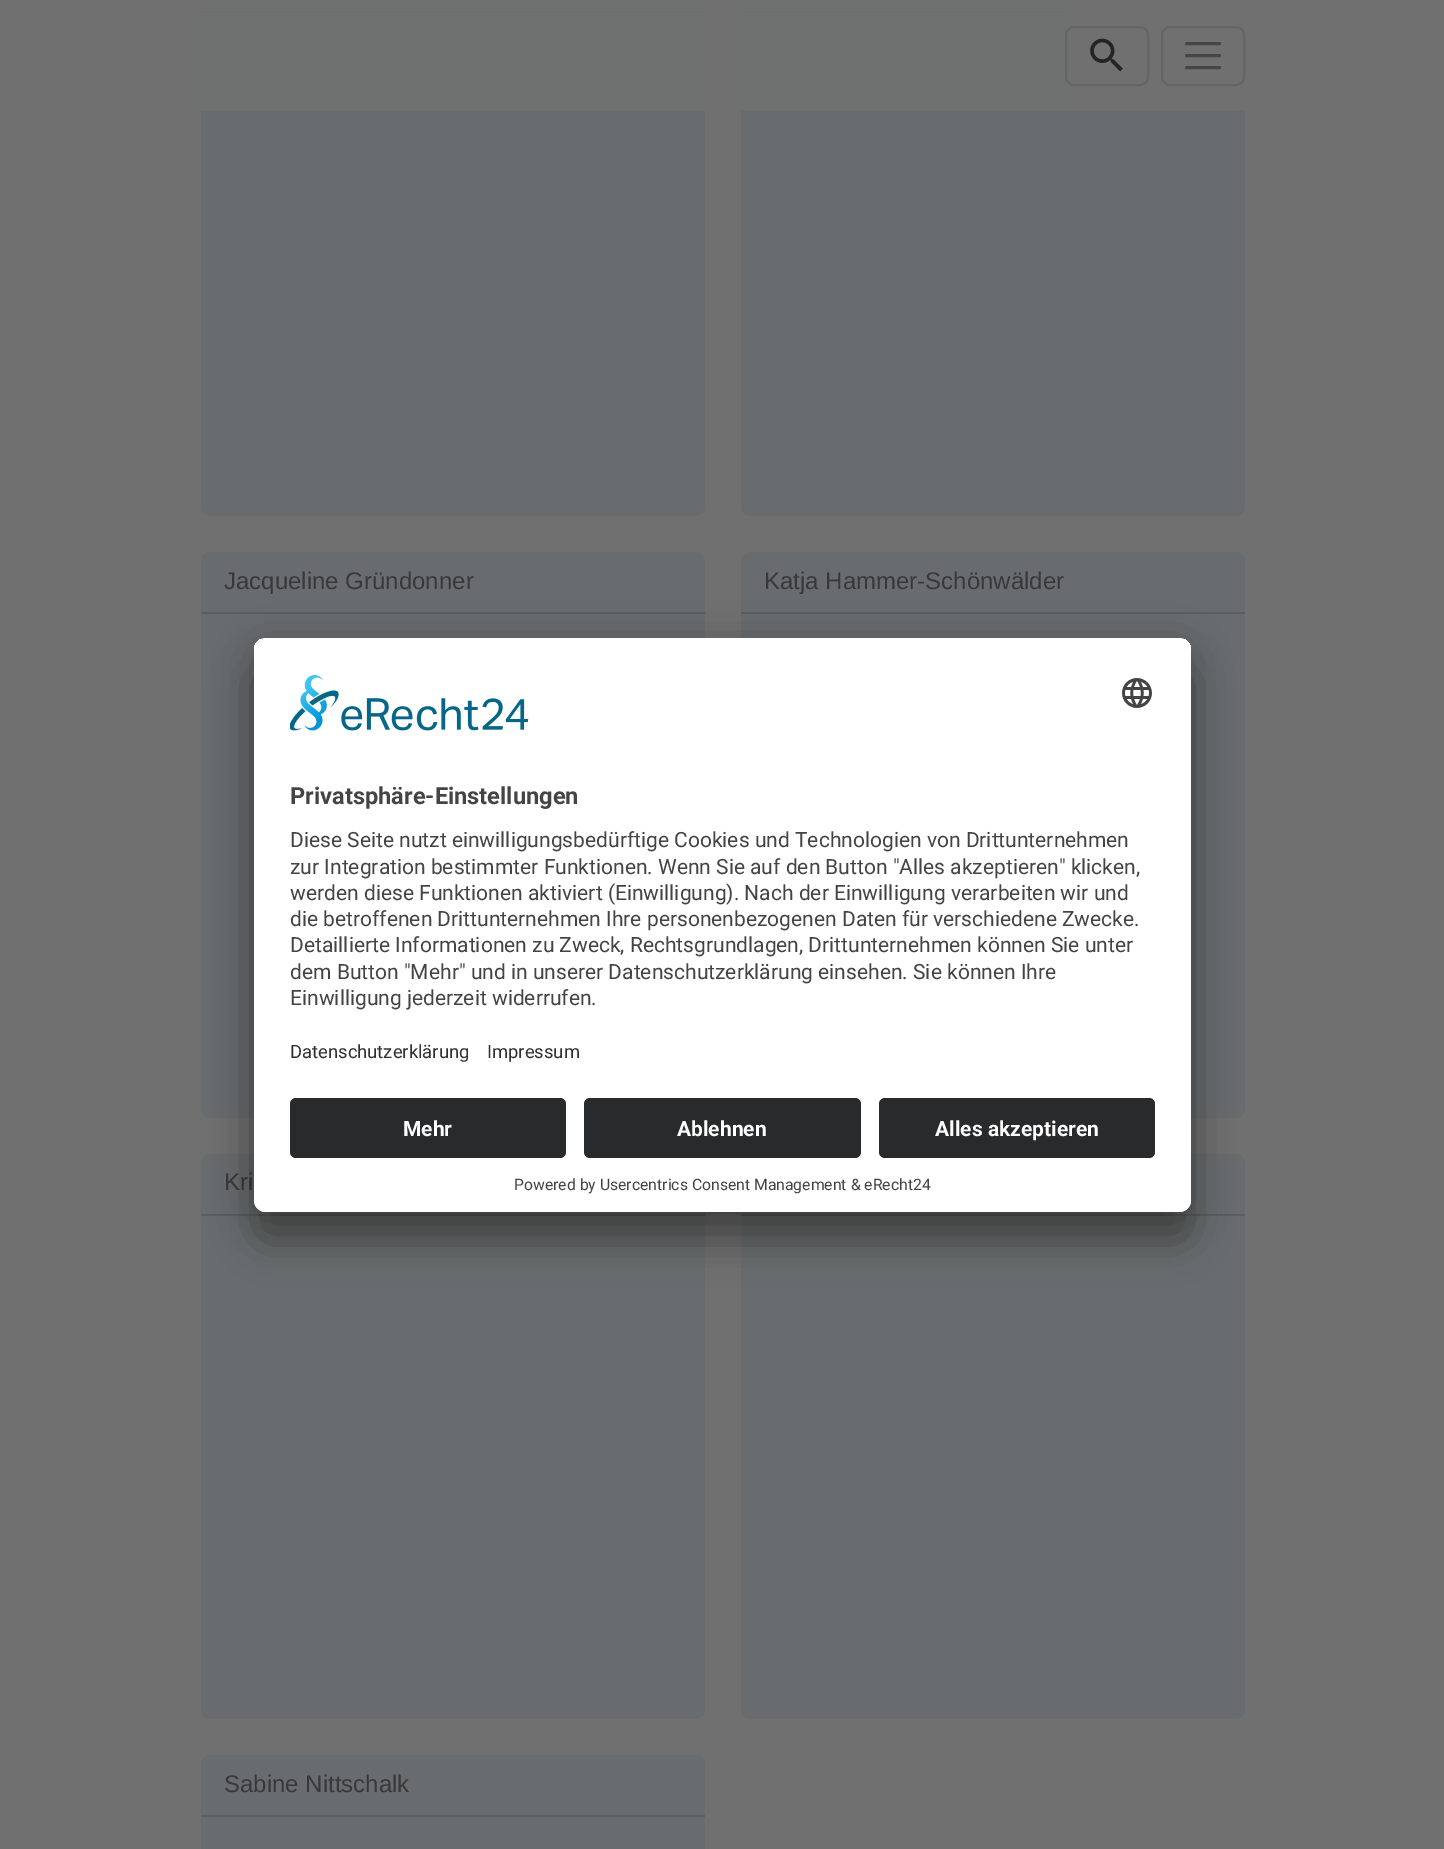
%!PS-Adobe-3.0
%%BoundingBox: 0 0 1444 1849
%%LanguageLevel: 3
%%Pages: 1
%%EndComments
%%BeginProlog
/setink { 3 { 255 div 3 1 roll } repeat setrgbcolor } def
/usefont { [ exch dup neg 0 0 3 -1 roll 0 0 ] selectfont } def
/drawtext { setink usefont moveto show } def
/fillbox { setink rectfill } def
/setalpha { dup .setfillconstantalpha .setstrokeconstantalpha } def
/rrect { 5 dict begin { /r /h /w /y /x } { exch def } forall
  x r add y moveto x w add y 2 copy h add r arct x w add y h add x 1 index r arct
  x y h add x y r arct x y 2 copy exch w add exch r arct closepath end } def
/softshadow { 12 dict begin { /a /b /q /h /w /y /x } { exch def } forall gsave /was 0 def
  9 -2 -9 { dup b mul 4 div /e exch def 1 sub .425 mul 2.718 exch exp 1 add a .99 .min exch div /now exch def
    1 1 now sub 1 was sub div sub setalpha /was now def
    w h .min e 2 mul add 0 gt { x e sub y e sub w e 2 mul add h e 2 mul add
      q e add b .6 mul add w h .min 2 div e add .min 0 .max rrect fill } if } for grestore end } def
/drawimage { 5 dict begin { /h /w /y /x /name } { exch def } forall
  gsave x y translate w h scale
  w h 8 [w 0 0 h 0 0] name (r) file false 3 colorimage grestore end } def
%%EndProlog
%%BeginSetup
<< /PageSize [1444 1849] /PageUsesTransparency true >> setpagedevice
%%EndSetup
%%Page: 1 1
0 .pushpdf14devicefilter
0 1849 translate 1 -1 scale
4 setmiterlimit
0 0 1444 1849 112 112 112 fillbox
104 108 110 setink
741 -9 504 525 9 rrect fill
1065 0 180 111 112 112 112 fillbox
101 101 101 setink
2 setlinewidth
1066 27 82 58 8 rrect stroke
(assets/img1.rgb) 1090 38 33 34 drawimage
1162 27 82 58 8 rrect stroke
70 70 70 setink
3 setlinewidth
1 setlinecap
1186.5 43.5 moveto 1219.5 43.5 lineto 1186.5 55.5 moveto 1219.5 55.5 lineto 1186.5 67.5 moveto 1219.5 67.5 lineto stroke
104 108 110 setink
201 -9 504 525 9 rrect fill
201 13 504 98 111 112 112 fillbox
201 12 504 1 110 110 111 fillbox
201 0 504 11 111 112 112 fillbox
201 11 504 1 110 110 110 fillbox
741 13 324 98 111 112 112 fillbox
741 12 324 1 110 110 111 fillbox
741 0 324 11 111 112 112 fillbox
741 11 324 1 110 110 110 fillbox
104 108 110 setink
201 552 504 566 9 rrect fill
201 612 504 2 91 94 95 fillbox
(Jacqueline Gründonner) 224 589 /LiberationSans-Regular 24 56 56 56 drawtext
104 108 110 setink
741 552 504 566 9 rrect fill
741 612 504 2 91 94 95 fillbox
(Katja Hammer-Schönwälder) 764 589 /LiberationSans-Regular 24 56 56 56 drawtext
104 108 110 setink
201 1154 504 565 9 rrect fill
0.18 setalpha
201 1214 504 2 36 36 36 fillbox
1 setalpha
(Kri) 224 1190 /LiberationSans-Regular 24 56 56 56 drawtext
104 108 110 setink
741 1154 504 565 9 rrect fill
0.18 setalpha
741 1214 504 2 36 36 36 fillbox
1 setalpha
104 108 110 setink
201 1755 504 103 9 rrect fill
201 1815 504 2 91 94 95 fillbox
(Sabine Nittschalk) 224 1792 /LiberationSans-Regular 24 56 56 56 drawtext
0 0 0 setink
254 668 937 574 12 21 0.3 softshadow
254 645 937 575 12 19.5 0.22 softshadow
255 255 255 setink
254 638 937 574 12 rrect fill
gsave
254 638 937 574 12 rrect clip newpath
266 638 moveto 1179 638 lineto 1185.5 638 1191 643.5 1191 650 curveto 1191 1086 lineto 254 1086 lineto 254 650 lineto 254 643.5 259.5 638 266 638 curveto closepath clip newpath
254 639 937 447 255 255 255 fillbox
grestore
(assets/img2.rgb) 290 675 239 56 drawimage
(assets/img3.rgb) 1122 678 30 30 drawimage
(Privatsphäre-Einstellungen) 290 804 /Roboto-Bold 23.6 68 68 68 drawtext
(Diese Seite nutzt einwilligungsbedürftige Cookies und Technologien von Drittunternehmen) 290 847 /Roboto-Regular 21 68 68 68 drawtext
(zur Integration bestimmter Funktionen. Wenn Sie auf den Button "Alles akzeptieren" klicken,) 290 874 /Roboto-Regular 21 68 68 68 drawtext
(werden diese Funktionen aktiviert \(Einwilligung\). Nach der Einwilligung verarbeiten wir und) 290 900 /Roboto-Regular 21 68 68 68 drawtext
(die betroffenen Drittunternehmen Ihre personenbezogenen Daten für verschiedene Zwecke.) 290 926 /Roboto-Regular 21 68 68 68 drawtext
(Detaillierte Informationen zu Zweck, Rechtsgrundlagen, Drittunternehmen können Sie unter) 290 952 /Roboto-Regular 21 68 68 68 drawtext
(dem Button "Mehr" und in unserer Datenschutzerklärung einsehen. Sie können Ihre) 290 979 /Roboto-Regular 21 68 68 68 drawtext
(Einwilligung jederzeit widerrufen.) 290 1005 /Roboto-Regular 21 68 68 68 drawtext
(Datenschutzerklärung) 290 1058 /Roboto-Regular 18.4 48 48 48 drawtext
(Impressum) 487 1058 /Roboto-Regular 18.4 48 48 48 drawtext
255 255 255 setink
254 1086 moveto 1191 1086 lineto 1191 1200 lineto 1191 1206.5 1185.5 1212 1179 1212 curveto 266 1212 lineto 259.5 1212 254 1206.5 254 1200 curveto closepath fill
41 42 43 setink
290 1098 276 60 6 rrect fill
(Mehr) 403 1136 /Roboto-Bold 21 255 255 255 drawtext
41 42 43 setink
584 1098 277 60 6 rrect fill
(Ablehnen) 677 1136 /Roboto-Bold 21 255 255 255 drawtext
41 42 43 setink
879 1098 276 60 6 rrect fill
(Alles akzeptieren) 935 1136 /Roboto-Bold 21 255 255 255 drawtext
(Powered by Usercentrics Consent Management & eRecht24) 514 1190 /Roboto-Regular 15.75 68 68 68 drawtext
.poppdf14devicefilter showpage
%%EOF
